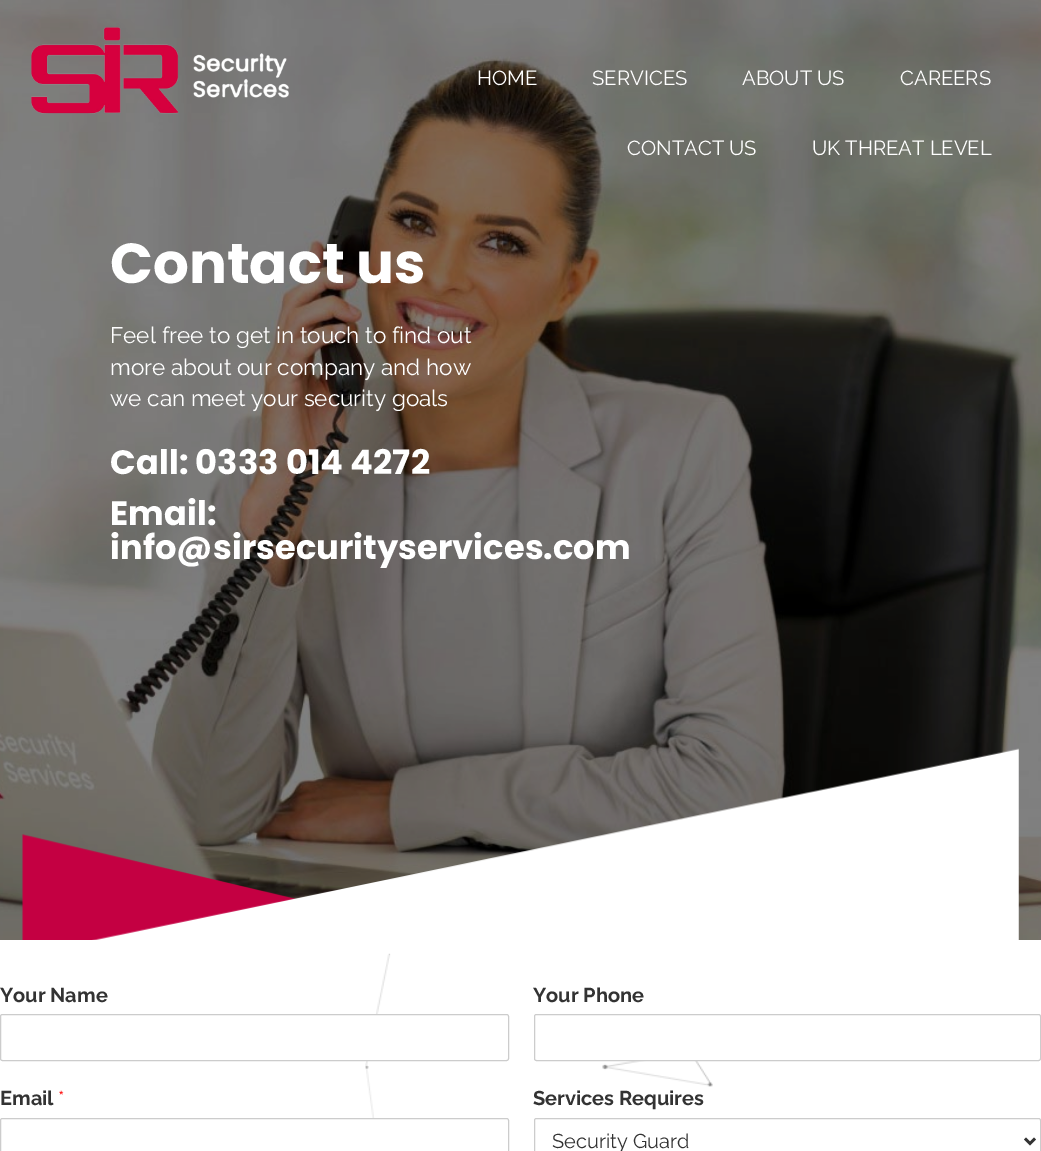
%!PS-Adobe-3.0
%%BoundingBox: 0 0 1041 1151
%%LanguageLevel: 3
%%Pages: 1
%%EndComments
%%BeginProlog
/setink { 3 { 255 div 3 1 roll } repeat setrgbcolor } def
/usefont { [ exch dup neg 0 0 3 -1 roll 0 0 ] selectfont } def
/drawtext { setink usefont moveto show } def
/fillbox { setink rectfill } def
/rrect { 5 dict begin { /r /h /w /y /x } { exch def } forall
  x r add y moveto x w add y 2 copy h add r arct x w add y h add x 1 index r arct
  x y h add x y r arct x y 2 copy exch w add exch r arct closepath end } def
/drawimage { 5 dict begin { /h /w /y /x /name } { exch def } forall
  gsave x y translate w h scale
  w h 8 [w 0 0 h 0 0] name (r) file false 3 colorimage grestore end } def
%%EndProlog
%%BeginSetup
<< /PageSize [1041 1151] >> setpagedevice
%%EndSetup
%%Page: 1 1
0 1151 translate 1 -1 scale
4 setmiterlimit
0 0 1041 1151 255 255 255 fillbox
(assets/img2.rgb) 0 0 1041 940 drawimage
(assets/img1.rgb) 31 27 258 87 drawimage
(HOME) 477 85 /Raleway-Regular 20.25 255 255 255 drawtext
(SERVICES) 592 85 /Raleway-Regular 20.25 255 255 255 drawtext
(ABOUT US) 742 85 /Raleway-Regular 20.25 255 255 255 drawtext
(CAREERS) 900 85 /Raleway-Regular 20.25 255 255 255 drawtext
(CONTACT US) 627 155 /Raleway-Regular 20.25 255 255 255 drawtext
(UK THREAT LEVEL) 812 155 /Raleway-Regular 20.25 255 255 255 drawtext
(Contact us) 110 283 /Poppins-Bold 56.25 255 255 255 drawtext
(Feel free to get in touch to find out) 110 343 /Raleway-Regular 22.5 255 255 255 drawtext
(more about our company and how) 110 375 /Raleway-Regular 22.5 255 255 255 drawtext
(we can meet your security goals) 110 406 /Raleway-Regular 22.5 255 255 255 drawtext
(Call: 0333 014 4272) 110 474 /Poppins-Bold 33.75 255 255 255 drawtext
(Email:) 110 525 /Poppins-Bold 33.75 255 255 255 drawtext
(info@sirsecurityservices.com) 110 559 /Poppins-Bold 33.75 255 255 255 drawtext
(assets/img3.rgb) 22 748 997 192 drawimage
(Your Name) 0 1002 /Raleway-Bold 20 51 51 51 drawtext
(assets/img4.rgb) 365 953 348 165 drawimage
255 255 255 setink
0.5 1014.5 508 46 2 rrect gsave fill grestore
204 204 204 setink
stroke
(Your Phone) 533 1002 /Raleway-Bold 20 51 51 51 drawtext
255 255 255 setink
534.5 1014.5 506 46 2 rrect gsave fill grestore
204 204 204 setink
stroke
(Email) 0 1105 /Raleway-Bold 20 51 51 51 drawtext
(*) 58 1105 /Raleway-Regular 20 255 0 0 drawtext
204 204 204 setink
0.5 1118.5 508 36 2 rrect stroke
(Services Requires) 533 1105 /Raleway-Bold 20 51 51 51 drawtext
204 204 204 setink
534.5 1118.5 506 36 2 rrect stroke
51 51 51 setink
2.5 setlinewidth
1025 1138.5 moveto 1030 1143.5 lineto 1035 1138.5 lineto stroke
(Security Guard) 552 1148 /Raleway-Regular 20 51 51 51 drawtext
showpage
%%EOF
